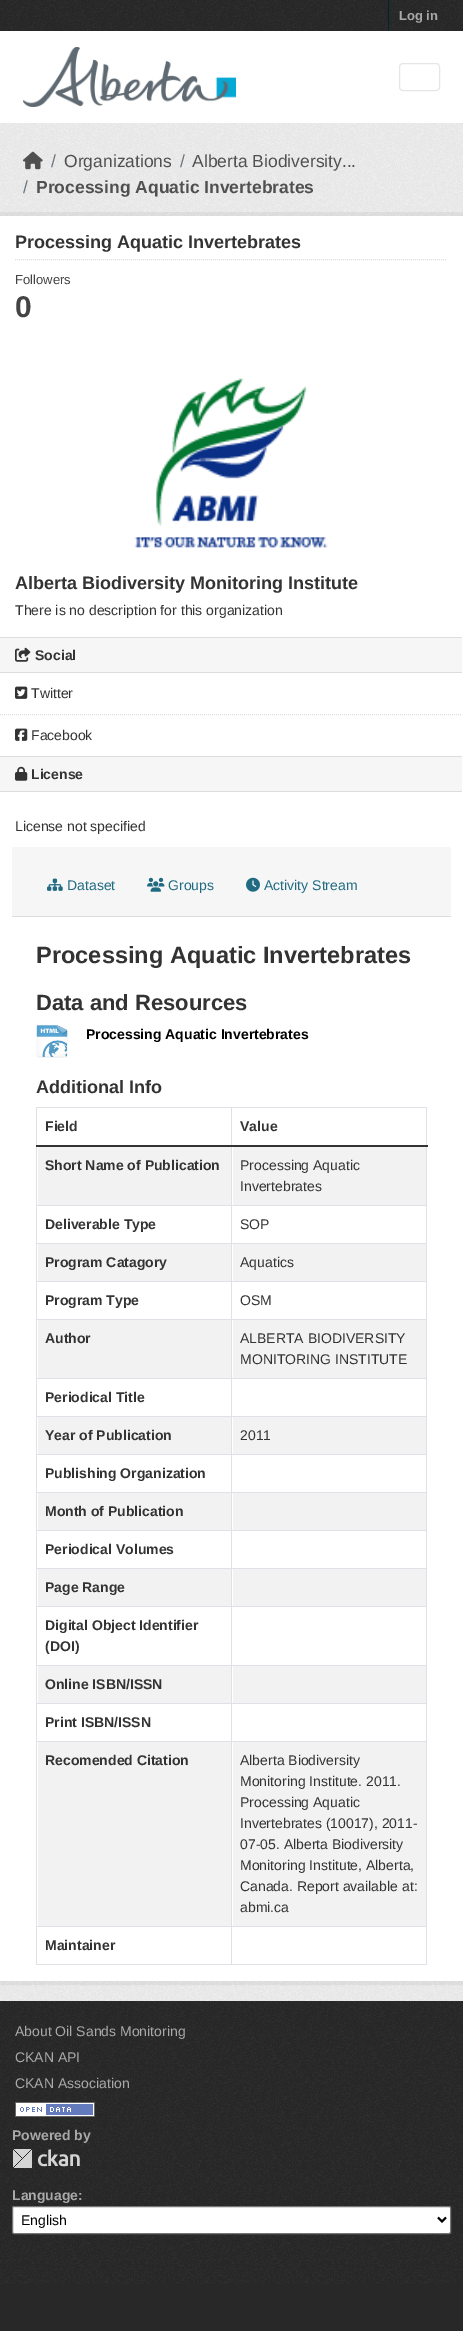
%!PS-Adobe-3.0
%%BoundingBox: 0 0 463 2331
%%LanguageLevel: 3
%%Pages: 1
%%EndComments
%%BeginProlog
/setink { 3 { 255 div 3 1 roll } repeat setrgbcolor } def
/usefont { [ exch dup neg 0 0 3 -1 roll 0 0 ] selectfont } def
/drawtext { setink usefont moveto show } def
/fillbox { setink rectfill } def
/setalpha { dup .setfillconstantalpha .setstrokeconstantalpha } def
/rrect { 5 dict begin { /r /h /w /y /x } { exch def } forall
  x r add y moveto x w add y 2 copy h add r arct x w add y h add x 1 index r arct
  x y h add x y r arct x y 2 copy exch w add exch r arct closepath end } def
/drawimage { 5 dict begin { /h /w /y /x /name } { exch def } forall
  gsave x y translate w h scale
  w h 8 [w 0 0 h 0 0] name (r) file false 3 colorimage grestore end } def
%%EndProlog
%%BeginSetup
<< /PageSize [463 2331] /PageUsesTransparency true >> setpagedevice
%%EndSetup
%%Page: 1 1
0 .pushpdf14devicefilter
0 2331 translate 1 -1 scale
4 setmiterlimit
0 0 463 2331 40 40 40 fillbox
(assets/img1.rgb) 0 0 463 31 drawimage
388 0 1 31 0 35 46 fillbox
(Log in) 399 20 /LiberationSans-Bold 13 169 169 169 drawtext
0 31 463 92 255 255 255 fillbox
(assets/img2.rgb) 23 47 213 60 drawimage
230 230 230 setink
399.5 63.5 40 27 3.5 rrect stroke
0 123 463 1878 238 238 238 fillbox
(assets/img3.rgb) 0 123 463 1878 drawimage
(assets/img4.rgb) 23 151 20 19 drawimage
(/) 51 167 /LiberationSans-Regular 17.5 108 117 125 drawtext
(Organizations) 64 167 /LiberationSans-Regular 17.5 80 80 80 drawtext
(/) 180 167 /LiberationSans-Regular 17.5 108 117 125 drawtext
(Alberta Biodiversity...) 192 167 /LiberationSans-Regular 17.5 80 80 80 drawtext
(/) 23 193 /LiberationSans-Regular 17.5 108 117 125 drawtext
(Processing Aquatic Invertebrates) 36 193 /LiberationSans-Bold 17.5 80 80 80 drawtext
0.05 setalpha
0 0 0 setink
4 setlinewidth
-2 214 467 1769 rectstroke
1 setalpha
0 216 463 1765 255 255 255 fillbox
(Processing Aquatic Invertebrates) 15 248 /LiberationSans-Bold 18 51 51 51 drawtext
221 221 221 setink
1 setlinewidth
[1 1] 0 setdash
15 259.5 moveto 447 259.5 lineto stroke
(Followers) 15 284 /LiberationSans-Regular 13 68 68 68 drawtext
(0) 15 317 /LiberationSans-Bold 30 68 68 68 drawtext
(assets/img5.rgb) 134 378 194 170 drawimage
(Alberta Biodiversity Monitoring Institute) 15 589 /LiberationSans-Bold 18 51 51 51 drawtext
(There is no description for this organization) 15 615 /LiberationSans-Regular 14 51 51 51 drawtext
0 638 462 34 246 246 246 fillbox
0 637 462 1 221 221 221 fillbox
0 672 462 1 221 221 221 fillbox
(assets/img6.rgb) 15 647 16 15 drawimage
(Social) 35 660 /LiberationSans-Bold 14 51 51 51 drawtext
221 221 221 setink
0 714.5 moveto 462 714.5 lineto stroke
(assets/img7.rgb) 15 686 13 13 drawimage
(Twitter) 31 698 /LiberationSans-Regular 14 51 51 51 drawtext
(assets/img8.rgb) 15 728 13 13 drawimage
(Facebook) 31 740 /LiberationSans-Regular 14 51 51 51 drawtext
0 757 462 34 246 246 246 fillbox
0 756 462 1 221 221 221 fillbox
0 791 462 1 221 221 221 fillbox
(assets/img9.rgb) 15 766 13 15 drawimage
(License) 31 779 /LiberationSans-Bold 14 51 51 51 drawtext
(License not specified) 15 831 /LiberationSans-Regular 14 51 51 51 drawtext
246 246 246 setink
12 847 moveto 448 847 lineto 449.5 847 451 848.5 451 850 curveto 451 917 lineto 12 917 lineto closepath fill
12 916 439 1 221 221 221 fillbox
(assets/img10.rgb) 47 878 16 13 drawimage
(Dataset) 67 890 /LiberationSans-Regular 14 32 107 130 drawtext
(assets/img11.rgb) 147 877 18 15 drawimage
(Groups) 168 890 /LiberationSans-Regular 14 32 107 130 drawtext
(assets/img12.rgb) 246 877 14 15 drawimage
(Activity Stream) 264 890 /LiberationSans-Regular 14 32 107 130 drawtext
(Processing Aquatic Invertebrates) 36 963 /LiberationSans-Bold 23.6 51 51 51 drawtext
(Data and Resources) 36 1010 /LiberationSans-Bold 22 51 51 51 drawtext
(assets/img13.rgb) 36 1025 32 33 drawimage
(Processing Aquatic Invertebrates) 86 1039 /LiberationSans-Bold 14 0 0 0 drawtext
(Additional Info) 36 1093 /LiberationSans-Bold 18 51 51 51 drawtext
36 1107 391 1 222 226 230 fillbox
(Field) 45 1131 /LiberationSans-Bold 14 51 51 51 drawtext
(Value) 240 1131 /LiberationSans-Bold 14 51 51 51 drawtext
36 1205 391 1 222 226 230 fillbox
36 1243 391 1 222 226 230 fillbox
36 1281 391 1 222 226 230 fillbox
36 1319 391 1 222 226 230 fillbox
36 1378 391 1 222 226 230 fillbox
36 1416 391 1 222 226 230 fillbox
36 1454 391 1 222 226 230 fillbox
36 1492 391 1 222 226 230 fillbox
36 1530 391 1 222 226 230 fillbox
36 1568 391 1 222 226 230 fillbox
36 1606 391 1 222 226 230 fillbox
36 1665 391 1 222 226 230 fillbox
36 1703 391 1 222 226 230 fillbox
36 1741 391 1 222 226 230 fillbox
36 1926 391 1 222 226 230 fillbox
36 1964 391 1 222 226 230 fillbox
36 1107 1 858 222 226 230 fillbox
426 1107 1 858 222 226 230 fillbox
231 1107 1 858 222 226 230 fillbox
36 1145 392 2 51 51 51 fillbox
38 1147 193 58 242 242 242 fillbox
(Short Name of Publication) 45 1170 /LiberationSans-Bold 14 51 51 51 drawtext
233 1147 193 58 242 242 242 fillbox
(Processing Aquatic) 240 1170 /LiberationSans-Regular 14 51 51 51 drawtext
(Invertebrates) 240 1191 /LiberationSans-Regular 14 51 51 51 drawtext
(Deliverable Type) 45 1229 /LiberationSans-Bold 14 51 51 51 drawtext
(SOP) 240 1229 /LiberationSans-Regular 14 51 51 51 drawtext
38 1244 193 37 242 242 242 fillbox
(Program Catagory) 45 1267 /LiberationSans-Bold 14 51 51 51 drawtext
233 1244 193 37 242 242 242 fillbox
(Aquatics) 240 1267 /LiberationSans-Regular 14 51 51 51 drawtext
(Program Type) 45 1305 /LiberationSans-Bold 14 51 51 51 drawtext
(OSM) 240 1305 /LiberationSans-Regular 14 51 51 51 drawtext
38 1320 193 58 242 242 242 fillbox
(Author) 45 1343 /LiberationSans-Bold 14 51 51 51 drawtext
233 1320 193 58 242 242 242 fillbox
(ALBERTA BIODIVERSITY) 240 1343 /LiberationSans-Regular 14 51 51 51 drawtext
(MONITORING INSTITUTE) 240 1364 /LiberationSans-Regular 14 51 51 51 drawtext
(Periodical Title) 45 1402 /LiberationSans-Bold 14 51 51 51 drawtext
38 1417 193 37 242 242 242 fillbox
(Year of Publication) 45 1440 /LiberationSans-Bold 14 51 51 51 drawtext
233 1417 193 37 242 242 242 fillbox
(2011) 240 1440 /LiberationSans-Regular 14 51 51 51 drawtext
(Publishing Organization) 45 1478 /LiberationSans-Bold 14 51 51 51 drawtext
38 1493 193 37 242 242 242 fillbox
(Month of Publication) 45 1516 /LiberationSans-Bold 14 51 51 51 drawtext
233 1493 193 37 242 242 242 fillbox
(Periodical Volumes) 45 1554 /LiberationSans-Bold 14 51 51 51 drawtext
38 1569 193 37 242 242 242 fillbox
(Page Range) 45 1592 /LiberationSans-Bold 14 51 51 51 drawtext
233 1569 193 37 242 242 242 fillbox
(Digital Object Identifier) 45 1630 /LiberationSans-Bold 14 51 51 51 drawtext
(\(DOI\)) 45 1651 /LiberationSans-Bold 14 51 51 51 drawtext
38 1666 193 37 242 242 242 fillbox
(Online ISBN/ISSN) 45 1689 /LiberationSans-Bold 14 51 51 51 drawtext
233 1666 193 37 242 242 242 fillbox
(Print ISBN/ISSN) 45 1727 /LiberationSans-Bold 14 51 51 51 drawtext
38 1742 193 184 242 242 242 fillbox
(Recomended Citation) 45 1765 /LiberationSans-Bold 14 51 51 51 drawtext
233 1742 193 184 242 242 242 fillbox
(Alberta Biodiversity) 240 1765 /LiberationSans-Regular 14 51 51 51 drawtext
(Monitoring Institute. 2011.) 240 1786 /LiberationSans-Regular 14 51 51 51 drawtext
(Processing Aquatic) 240 1807 /LiberationSans-Regular 14 51 51 51 drawtext
(Invertebrates \(10017\), 2011-) 240 1828 /LiberationSans-Regular 14 51 51 51 drawtext
(07-05. Alberta Biodiversity) 240 1849 /LiberationSans-Regular 14 51 51 51 drawtext
(Monitoring Institute, Alberta,) 240 1870 /LiberationSans-Regular 14 51 51 51 drawtext
(Canada. Report available at:) 240 1891 /LiberationSans-Regular 14 51 51 51 drawtext
(abmi.ca) 240 1912 /LiberationSans-Regular 14 51 51 51 drawtext
(Maintainer) 45 1950 /LiberationSans-Bold 14 51 51 51 drawtext
(assets/img14.rgb) 0 2001 463 283 drawimage
(About Oil Sands Monitoring) 15 2036 /LiberationSans-Regular 14 169 169 169 drawtext
(CKAN API) 15 2062 /LiberationSans-Regular 14 169 169 169 drawtext
(CKAN Association) 15 2088 /LiberationSans-Regular 14 169 169 169 drawtext
(assets/img15.rgb) 15 2102 80 15 drawimage
(Powered by) 12 2140 /LiberationSans-Bold 14 169 169 169 drawtext
(assets/img16.rgb) 13 2149 67 19 drawimage
(Language:) 12 2200 /LiberationSans-Bold 14 169 169 169 drawtext
255 255 255 setink
12.5 2206.5 438 27 1.5 rrect gsave fill grestore
118 118 118 setink
[] 0 setdash
stroke
0 0 0 setink
2 setlinewidth
438 2217.5 moveto 442 2221.5 lineto 446 2217.5 lineto stroke
(English) 21 2225 /LiberationSans-Regular 14 0 0 0 drawtext
.poppdf14devicefilter showpage
%%EOF
